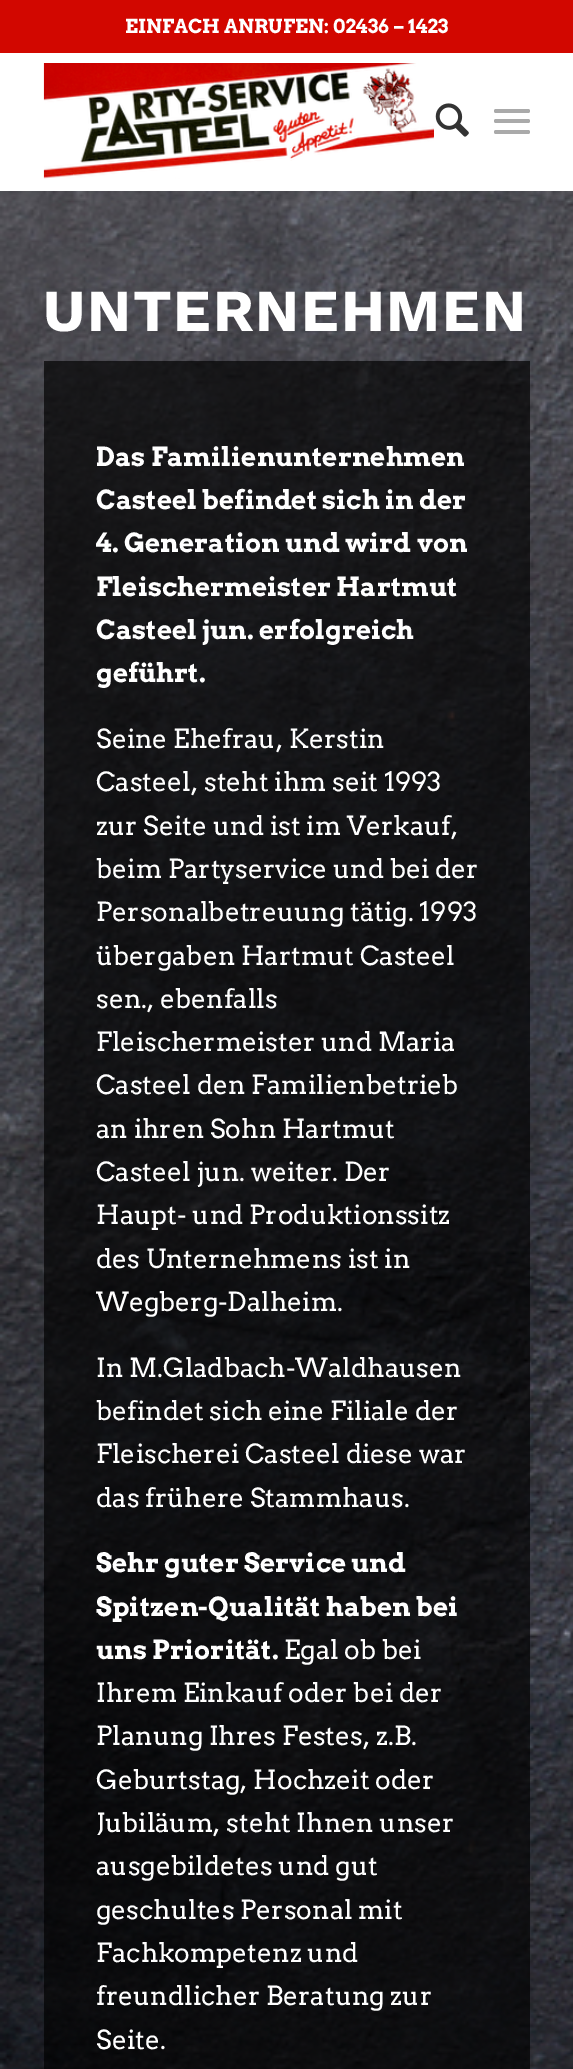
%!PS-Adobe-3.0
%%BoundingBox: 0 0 573 2069
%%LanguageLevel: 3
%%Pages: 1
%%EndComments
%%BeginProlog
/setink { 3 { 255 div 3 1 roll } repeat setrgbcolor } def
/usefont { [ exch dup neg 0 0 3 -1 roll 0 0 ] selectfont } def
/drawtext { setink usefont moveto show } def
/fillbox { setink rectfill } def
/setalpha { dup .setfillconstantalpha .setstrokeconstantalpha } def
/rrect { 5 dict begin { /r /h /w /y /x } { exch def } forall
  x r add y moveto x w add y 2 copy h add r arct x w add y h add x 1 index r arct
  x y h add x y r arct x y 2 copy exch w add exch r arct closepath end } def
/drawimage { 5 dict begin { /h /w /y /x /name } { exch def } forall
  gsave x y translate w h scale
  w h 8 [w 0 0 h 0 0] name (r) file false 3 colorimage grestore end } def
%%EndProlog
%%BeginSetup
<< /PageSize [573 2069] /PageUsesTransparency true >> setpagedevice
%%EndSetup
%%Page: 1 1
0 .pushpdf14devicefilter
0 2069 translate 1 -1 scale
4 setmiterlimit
0 0 573 2069 255 255 255 fillbox
0 0 573 53 210 7 0 fillbox
(EINFACH ANRUFEN: 02436 – 1423) 125 33 /Arvo-Bold 19.25 255 255 255 drawtext
(assets/img1.rgb) 43 63 391 116 drawimage
(assets/img2.rgb) 435 103 34 34 drawimage
170 170 170 setink
494 119 36 4 2 rrect fill
494 109 36 4 2 rrect fill
494 130 36 4 2 rrect fill
(assets/img3.rgb) 0 191 573 1878 drawimage
/WorkSans-Bold 59.5 usefont
255 255 255 setink
43 331 moveto 1.75 0 (UNTERNEHMEN) ashow
0.68 setalpha
44 361 486 1708 0 0 0 fillbox
1 setalpha
(Das Familienunternehmen) 96 466 /Arvo-Bold 26.25 255 255 255 drawtext
(Casteel befindet sich in der) 96 509 /Arvo-Bold 26.25 255 255 255 drawtext
(4. Generation und wird von) 96 552 /Arvo-Bold 26.25 255 255 255 drawtext
(Fleischermeister Hartmut) 96 596 /Arvo-Bold 26.25 255 255 255 drawtext
(Casteel jun. erfolgreich) 96 639 /Arvo-Bold 26.25 255 255 255 drawtext
(geführt.) 96 682 /Arvo-Bold 26.25 255 255 255 drawtext
(Seine Ehefrau, Kerstin) 96 748 /Arvo-Regular 26.25 255 255 255 drawtext
(Casteel, steht ihm seit 1993) 96 791 /Arvo-Regular 26.25 255 255 255 drawtext
(zur Seite und ist im Verkauf,) 96 835 /Arvo-Regular 26.25 255 255 255 drawtext
(beim Partyservice und bei der) 96 878 /Arvo-Regular 26.25 255 255 255 drawtext
(Personalbetreuung tätig. 1993) 96 921 /Arvo-Regular 26.25 255 255 255 drawtext
(übergaben Hartmut Casteel) 96 965 /Arvo-Regular 26.25 255 255 255 drawtext
(sen., ebenfalls) 96 1008 /Arvo-Regular 26.25 255 255 255 drawtext
(Fleischermeister und Maria) 96 1051 /Arvo-Regular 26.25 255 255 255 drawtext
(Casteel den Familienbetrieb) 96 1094 /Arvo-Regular 26.25 255 255 255 drawtext
(an ihren Sohn Hartmut) 96 1138 /Arvo-Regular 26.25 255 255 255 drawtext
(Casteel jun. weiter. Der) 96 1181 /Arvo-Regular 26.25 255 255 255 drawtext
(Haupt- und Produktionssitz) 96 1224 /Arvo-Regular 26.25 255 255 255 drawtext
(des Unternehmens ist in) 96 1268 /Arvo-Regular 26.25 255 255 255 drawtext
(Wegberg-Dalheim.) 96 1311 /Arvo-Regular 26.25 255 255 255 drawtext
(In M.Gladbach-Waldhausen) 96 1377 /Arvo-Regular 26.25 255 255 255 drawtext
(befindet sich eine Filiale der) 96 1420 /Arvo-Regular 26.25 255 255 255 drawtext
(Fleischerei Casteel diese war) 96 1463 /Arvo-Regular 26.25 255 255 255 drawtext
(das frühere Stammhaus.) 96 1507 /Arvo-Regular 26.25 255 255 255 drawtext
(Sehr guter Service und) 96 1572 /Arvo-Bold 26.25 255 255 255 drawtext
(Spitzen-Qualität haben bei) 96 1616 /Arvo-Bold 26.25 255 255 255 drawtext
(uns Priorität.) 96 1659 /Arvo-Bold 26.25 255 255 255 drawtext
(Egal ob bei) 284 1659 /Arvo-Regular 26.25 255 255 255 drawtext
(Ihrem Einkauf oder bei der) 96 1702 /Arvo-Regular 26.25 255 255 255 drawtext
(Planung Ihres Festes, z.B.) 96 1745 /Arvo-Regular 26.25 255 255 255 drawtext
(Geburtstag, Hochzeit oder) 96 1789 /Arvo-Regular 26.25 255 255 255 drawtext
(Jubiläum, steht Ihnen unser) 96 1832 /Arvo-Regular 26.25 255 255 255 drawtext
(ausgebildetes und gut) 96 1875 /Arvo-Regular 26.25 255 255 255 drawtext
(geschultes Personal mit) 96 1919 /Arvo-Regular 26.25 255 255 255 drawtext
(Fachkompetenz und) 96 1962 /Arvo-Regular 26.25 255 255 255 drawtext
(freundlicher Beratung zur) 96 2005 /Arvo-Regular 26.25 255 255 255 drawtext
(Seite.) 96 2049 /Arvo-Regular 26.25 255 255 255 drawtext
.poppdf14devicefilter showpage
%%EOF
